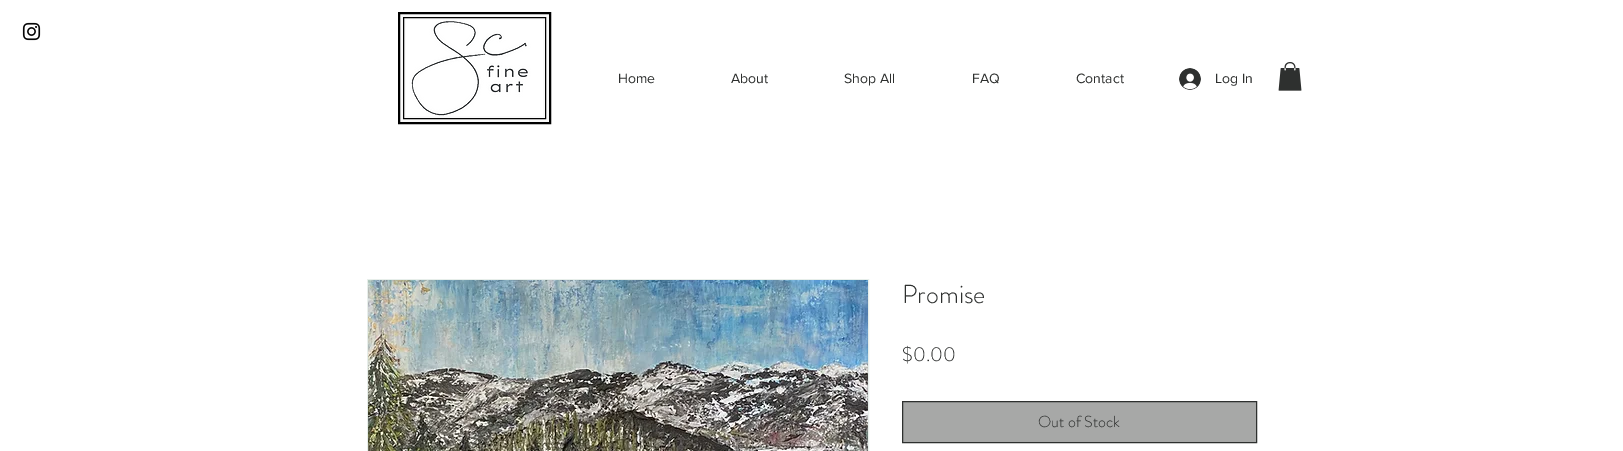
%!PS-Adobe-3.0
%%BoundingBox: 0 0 1623 451
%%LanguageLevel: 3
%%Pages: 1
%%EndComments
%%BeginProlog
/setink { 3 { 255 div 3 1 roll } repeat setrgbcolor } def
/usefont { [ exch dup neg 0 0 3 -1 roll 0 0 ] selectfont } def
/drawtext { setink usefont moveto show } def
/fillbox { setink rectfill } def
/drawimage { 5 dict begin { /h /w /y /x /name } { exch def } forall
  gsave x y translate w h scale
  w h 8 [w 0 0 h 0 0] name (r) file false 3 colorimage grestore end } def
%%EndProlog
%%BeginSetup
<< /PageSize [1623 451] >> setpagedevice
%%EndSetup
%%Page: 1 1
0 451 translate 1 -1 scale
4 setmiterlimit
0 0 1623 451 255 255 255 fillbox
(assets/img1.rgb) 22 22 19 19 drawimage
250 250 250 setink
399 13 moveto 550 13 lineto 550 123 lineto 399 123 lineto closepath gsave fill grestore
0 0 0 setink
2 setlinewidth
stroke
(assets/img2.rgb) 406 20 137 96 drawimage
1 setlinewidth
403.5 17.5 142 101 rectstroke
(Home) 618 83 /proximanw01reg-Regular 14 46 48 47 drawtext
(About) 731 83 /proximanw01reg-Regular 14 46 48 47 drawtext
(Shop All) 844 83 /proximanw01reg-Regular 14 46 48 47 drawtext
(FAQ) 972 83 /proximanw01reg-Regular 14 46 48 47 drawtext
(Contact) 1076 83 /proximanw01reg-Regular 14 46 48 47 drawtext
(assets/img3.rgb) 1179 68 22 22 drawimage
(Log In) 1215 83 /proximanw01reg-Regular 14 46 48 47 drawtext
(assets/img4.rgb) 1278 62 24 29 drawimage
231 238 234 setink
367.5 279.5 501 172 rectstroke
(assets/img5.rgb) 368 280 500 171 drawimage
(Promise) 902 303 /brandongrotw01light-Light 26 46 48 47 drawtext
($0.00) 902 361 /brandongrotw01light-Light 20 46 48 47 drawtext
167 168 167 setink
902.5 401.5 moveto 1256.5 401.5 lineto 1256.5 442.5 lineto 902.5 442.5 lineto closepath gsave fill grestore
46 48 47 setink
stroke
(Out of Stock) 1038 427 /brandongrotw01light-Light 16 46 48 47 drawtext
showpage
%%EOF
